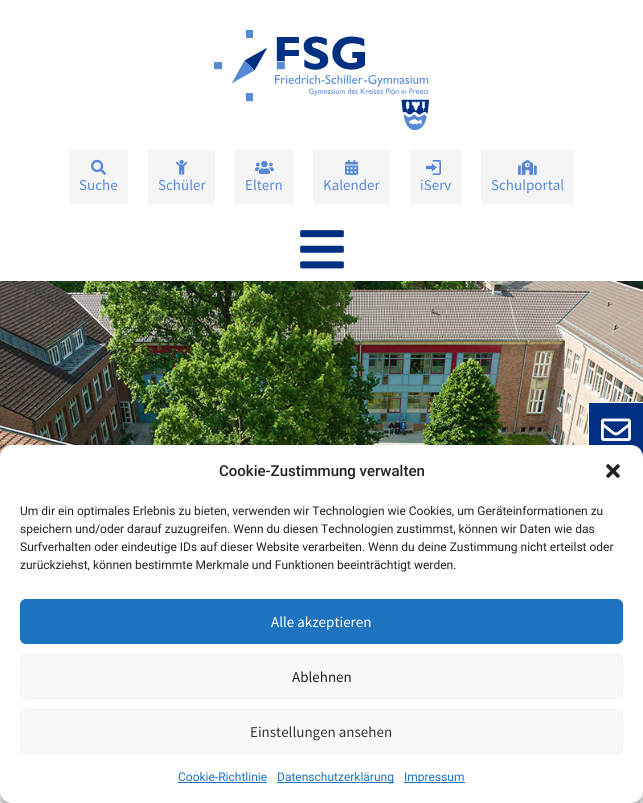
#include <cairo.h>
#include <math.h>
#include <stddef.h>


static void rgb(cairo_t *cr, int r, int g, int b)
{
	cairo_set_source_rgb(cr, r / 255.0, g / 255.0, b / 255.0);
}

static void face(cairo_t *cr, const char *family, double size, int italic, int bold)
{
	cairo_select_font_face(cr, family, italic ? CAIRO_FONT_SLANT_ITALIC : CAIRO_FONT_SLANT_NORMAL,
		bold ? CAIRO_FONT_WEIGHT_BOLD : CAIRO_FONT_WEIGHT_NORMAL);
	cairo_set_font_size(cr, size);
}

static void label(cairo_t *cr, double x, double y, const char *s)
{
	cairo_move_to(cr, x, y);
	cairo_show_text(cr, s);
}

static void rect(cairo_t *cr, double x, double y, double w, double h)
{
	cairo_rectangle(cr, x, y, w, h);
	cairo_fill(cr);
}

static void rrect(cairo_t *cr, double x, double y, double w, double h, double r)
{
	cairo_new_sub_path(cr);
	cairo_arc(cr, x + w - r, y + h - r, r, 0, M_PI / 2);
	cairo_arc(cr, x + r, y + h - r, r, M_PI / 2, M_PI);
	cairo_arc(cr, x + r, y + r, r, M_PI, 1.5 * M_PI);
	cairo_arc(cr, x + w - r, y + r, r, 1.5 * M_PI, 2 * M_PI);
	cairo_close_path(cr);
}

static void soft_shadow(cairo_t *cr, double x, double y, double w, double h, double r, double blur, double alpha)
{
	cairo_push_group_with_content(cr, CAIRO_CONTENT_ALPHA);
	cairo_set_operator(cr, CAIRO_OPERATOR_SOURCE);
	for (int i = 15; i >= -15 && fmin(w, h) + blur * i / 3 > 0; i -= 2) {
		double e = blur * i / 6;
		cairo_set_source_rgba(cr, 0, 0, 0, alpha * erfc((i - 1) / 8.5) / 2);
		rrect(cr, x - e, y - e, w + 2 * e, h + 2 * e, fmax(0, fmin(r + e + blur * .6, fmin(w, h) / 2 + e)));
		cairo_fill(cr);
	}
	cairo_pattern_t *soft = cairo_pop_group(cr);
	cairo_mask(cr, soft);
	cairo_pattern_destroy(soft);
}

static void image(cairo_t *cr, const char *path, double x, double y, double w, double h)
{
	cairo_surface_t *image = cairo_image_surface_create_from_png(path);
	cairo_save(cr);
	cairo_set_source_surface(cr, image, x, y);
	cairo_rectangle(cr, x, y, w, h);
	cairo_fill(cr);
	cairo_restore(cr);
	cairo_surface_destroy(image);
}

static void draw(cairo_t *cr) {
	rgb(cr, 255, 255, 255);
	cairo_paint(cr);
	image(cr, "image0.png", 214, 30, 215, 100);
	rgb(cr, 245, 245, 245);
	rect(cr, 69, 150, 59, 54);
	image(cr, "image1.png", 91, 159, 15, 16);
	face(cr, "Source Sans Pro", 15, 0, 0);
	rgb(cr, 87, 138, 214);
	label(cr, 79, 190, "Suche");
	rgb(cr, 245, 245, 245);
	rect(cr, 148, 150, 67, 54);
	image(cr, "image2.png", 176, 159, 12, 16);
	rgb(cr, 87, 138, 214);
	label(cr, 158, 190, "Schüler");
	rgb(cr, 245, 245, 245);
	rect(cr, 235, 150, 58, 54);
	image(cr, "image3.png", 255, 160, 19, 14);
	rgb(cr, 87, 138, 214);
	label(cr, 245, 190, "Eltern");
	rgb(cr, 245, 245, 245);
	rect(cr, 313, 150, 77, 54);
	image(cr, "image4.png", 345, 159, 14, 16);
	rgb(cr, 87, 138, 214);
	label(cr, 323, 190, "Kalender");
	rgb(cr, 245, 245, 245);
	rect(cr, 410, 150, 51, 54);
	image(cr, "image5.png", 426, 160, 15, 15);
	rgb(cr, 87, 138, 214);
	label(cr, 420, 190, "iServ");
	rgb(cr, 245, 245, 245);
	rect(cr, 481, 150, 93, 54);
	image(cr, "image6.png", 518, 159, 19, 16);
	rgb(cr, 87, 138, 214);
	label(cr, 491, 190, "Schulportal");
	image(cr, "image7.png", 300, 230, 44, 39);
	image(cr, "image8.png", 0, 281, 643, 176);
	rgb(cr, 0, 48, 130);
	rect(cr, 589, 403, 54, 54);
	rgb(cr, 255, 255, 255);
	rect(cr, 588, 402, 55, 1);
	rect(cr, 588, 402, 1, 43);
	image(cr, "image9.png", 601, 418, 30, 23);
	rgb(cr, 0, 0, 0);
	soft_shadow(cr, 0, 451, 643, 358, 12, 3, 0.23);
	soft_shadow(cr, 0, 455, 643, 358, 12, 10, 0.19);
	rgb(cr, 255, 255, 255);
	rrect(cr, 0, 445, 643, 358, 12);
	cairo_fill(cr);
	face(cr, "Roboto Medium", 15, 0, 0);
	rgb(cr, 34, 34, 34);
	label(cr, 219, 476, "Cookie-Zustimmung verwalten");
	image(cr, "image10.png", 606, 464, 14, 14);
	face(cr, "Roboto", 12, 0, 0);
	label(cr, 20, 515, "Um dir ein optimales Erlebnis zu bieten, verwenden wir Technologien wie Cookies, um Geräteinformationen zu");
	label(cr, 20, 533, "speichern und/oder darauf zuzugreifen. Wenn du diesen Technologien zustimmst, können wir Daten wie das");
	label(cr, 20, 551, "Surfverhalten oder eindeutige IDs auf dieser Website verarbeiten. Wenn du deine Zustimmung nicht erteilst oder");
	label(cr, 20, 569, "zurückziehst, können bestimmte Merkmale und Funktionen beeinträchtigt werden.");
	rgb(cr, 30, 115, 190);
	rrect(cr, 20.5, 599.5, 602, 44, 5.5);
	cairo_fill_preserve(cr);
	cairo_set_line_width(cr, 1);
	cairo_stroke(cr);
	face(cr, "Source Sans Pro", 15, 0, 0);
	rgb(cr, 255, 255, 255);
	label(cr, 271, 627, "Alle akzeptieren");
	rgb(cr, 249, 249, 249);
	rrect(cr, 20.5, 654.5, 602, 44, 5.5);
	cairo_fill_preserve(cr);
	rgb(cr, 242, 242, 242);
	cairo_stroke(cr);
	rgb(cr, 34, 34, 34);
	label(cr, 292, 682, "Ablehnen");
	rgb(cr, 249, 249, 249);
	rrect(cr, 20.5, 709.5, 602, 44, 5.5);
	cairo_fill_preserve(cr);
	rgb(cr, 242, 242, 242);
	cairo_stroke(cr);
	rgb(cr, 51, 51, 51);
	label(cr, 250, 737, "Einstellungen ansehen");
	face(cr, "Roboto", 12, 0, 0);
	rgb(cr, 30, 115, 190);
	label(cr, 178, 781, "Cookie-Richtlinie");
	rect(cr, 178, 782, 89, 1);
	rect(cr, 277, 782, 117, 1);
	label(cr, 277, 781, "Datenschutzerklärung");
	rect(cr, 404, 782, 61, 1);
	label(cr, 404, 781, "Impressum");
}

int main(void) {
	cairo_surface_t *surface = cairo_image_surface_create(CAIRO_FORMAT_RGB24, 643, 803);
	cairo_t *cr = cairo_create(surface);
	cairo_font_options_t *options = cairo_font_options_create();
	cairo_font_options_set_hint_metrics(options, CAIRO_HINT_METRICS_OFF);
	cairo_font_options_set_hint_style(options, CAIRO_HINT_STYLE_NONE);
	cairo_set_font_options(cr, options);
	cairo_set_miter_limit(cr, 4);
	draw(cr);
	cairo_surface_write_to_png(surface, "render.png");
	cairo_font_options_destroy(options);
	cairo_destroy(cr);
	cairo_surface_destroy(surface);
	return 0;
}
